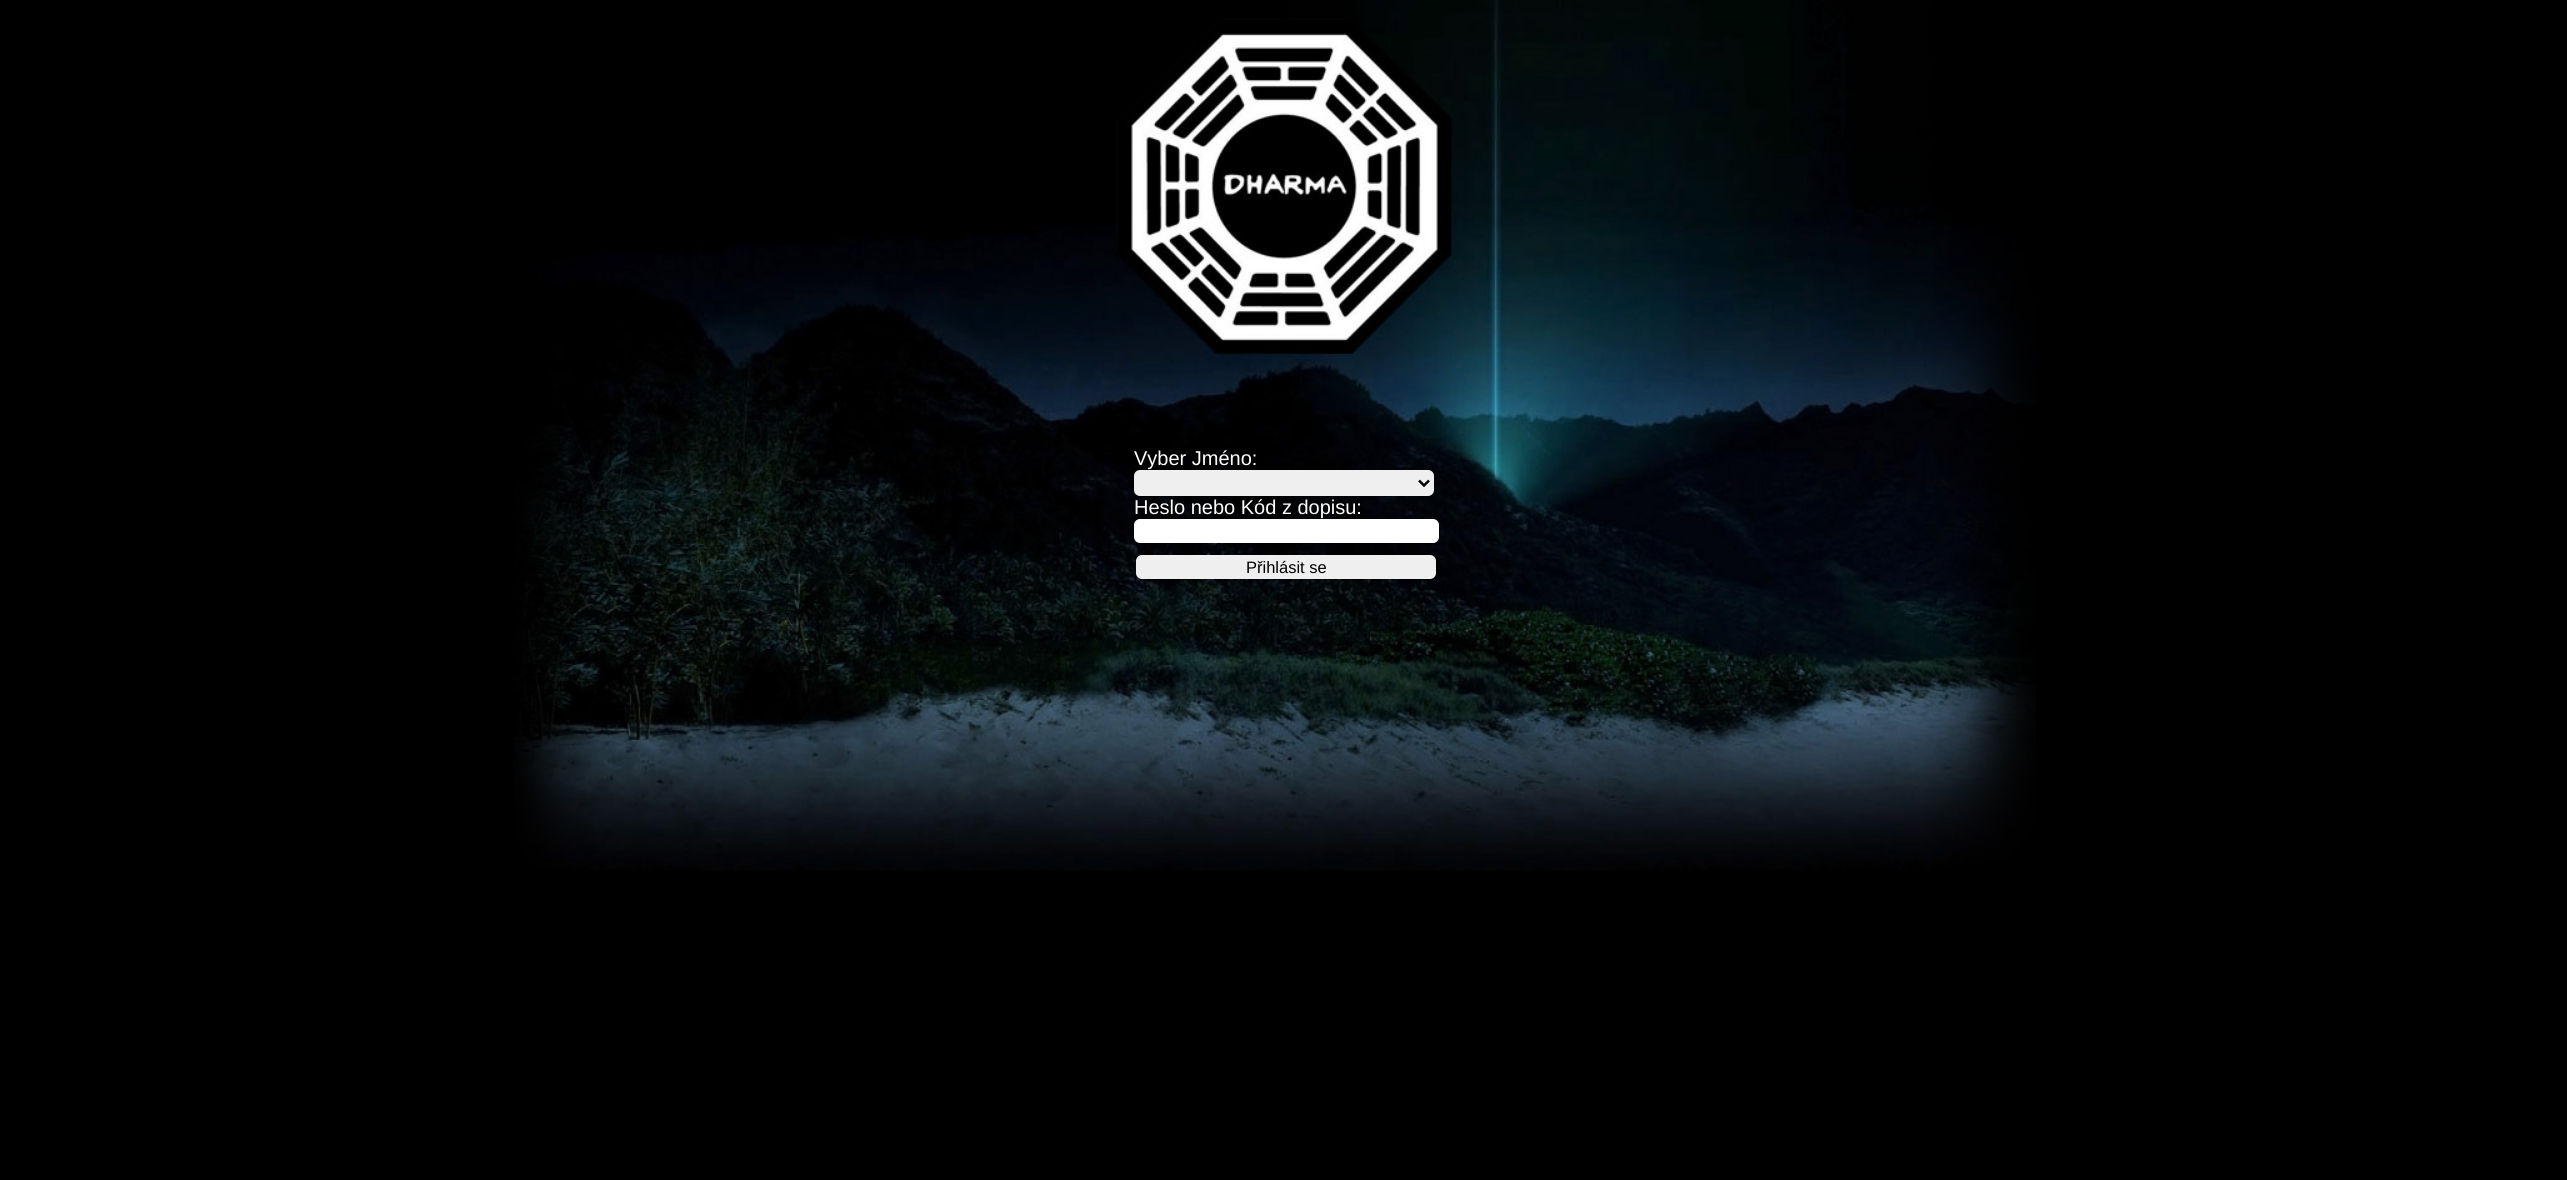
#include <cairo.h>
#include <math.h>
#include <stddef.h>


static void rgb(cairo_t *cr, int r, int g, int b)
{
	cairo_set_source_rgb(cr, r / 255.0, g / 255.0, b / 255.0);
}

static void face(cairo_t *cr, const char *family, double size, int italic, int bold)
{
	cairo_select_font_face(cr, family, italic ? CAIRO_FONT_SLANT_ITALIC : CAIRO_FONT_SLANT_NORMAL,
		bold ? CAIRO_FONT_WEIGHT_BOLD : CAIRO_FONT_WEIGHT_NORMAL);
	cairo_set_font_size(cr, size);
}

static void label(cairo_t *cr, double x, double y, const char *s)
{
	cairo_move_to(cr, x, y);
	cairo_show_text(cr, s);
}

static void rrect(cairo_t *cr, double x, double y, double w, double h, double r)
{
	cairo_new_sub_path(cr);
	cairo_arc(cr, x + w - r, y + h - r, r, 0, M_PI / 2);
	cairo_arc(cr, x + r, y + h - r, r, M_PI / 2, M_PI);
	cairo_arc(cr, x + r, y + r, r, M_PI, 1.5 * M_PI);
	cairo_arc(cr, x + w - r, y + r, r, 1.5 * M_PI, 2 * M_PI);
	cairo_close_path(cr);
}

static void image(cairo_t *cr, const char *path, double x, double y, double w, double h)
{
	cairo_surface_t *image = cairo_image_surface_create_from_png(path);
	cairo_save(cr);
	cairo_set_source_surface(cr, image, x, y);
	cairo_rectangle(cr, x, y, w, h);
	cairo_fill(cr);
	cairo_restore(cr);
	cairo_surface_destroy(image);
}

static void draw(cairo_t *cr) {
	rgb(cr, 0, 0, 0);
	cairo_paint(cr);
	image(cr, "image0.png", 514, 0, 1522, 871);
	face(cr, "Liberation Sans", 20, 0, 0);
	rgb(cr, 255, 255, 255);
	label(cr, 1134, 465, "Vyber Jméno:");
	rgb(cr, 239, 239, 239);
	rrect(cr, 1134, 470, 300, 26, 6);
	cairo_fill(cr);
	cairo_new_path(cr);
	cairo_move_to(cr, 1419, 480.5);
	cairo_line_to(cr, 1424, 485.5);
	cairo_line_to(cr, 1429, 480.5);
	rgb(cr, 0, 0, 0);
	cairo_set_line_width(cr, 2.5);
	cairo_stroke(cr);
	rgb(cr, 255, 255, 255);
	label(cr, 1134, 514, "Heslo nebo Kód z dopisu:");
	rrect(cr, 1134, 519, 305, 24, 6);
	cairo_fill(cr);
	rgb(cr, 239, 239, 239);
	rrect(cr, 1136, 555, 300, 24, 6);
	cairo_fill(cr);
	face(cr, "Liberation Sans", 16.5, 0, 0);
	rgb(cr, 0, 0, 0);
	label(cr, 1246, 573, "Přihlásit se");
}

int main(void) {
	cairo_surface_t *surface = cairo_image_surface_create(CAIRO_FORMAT_RGB24, 2567, 1180);
	cairo_t *cr = cairo_create(surface);
	cairo_font_options_t *options = cairo_font_options_create();
	cairo_font_options_set_hint_metrics(options, CAIRO_HINT_METRICS_OFF);
	cairo_font_options_set_hint_style(options, CAIRO_HINT_STYLE_NONE);
	cairo_set_font_options(cr, options);
	cairo_set_miter_limit(cr, 4);
	draw(cr);
	cairo_surface_write_to_png(surface, "render.png");
	cairo_font_options_destroy(options);
	cairo_destroy(cr);
	cairo_surface_destroy(surface);
	return 0;
}
